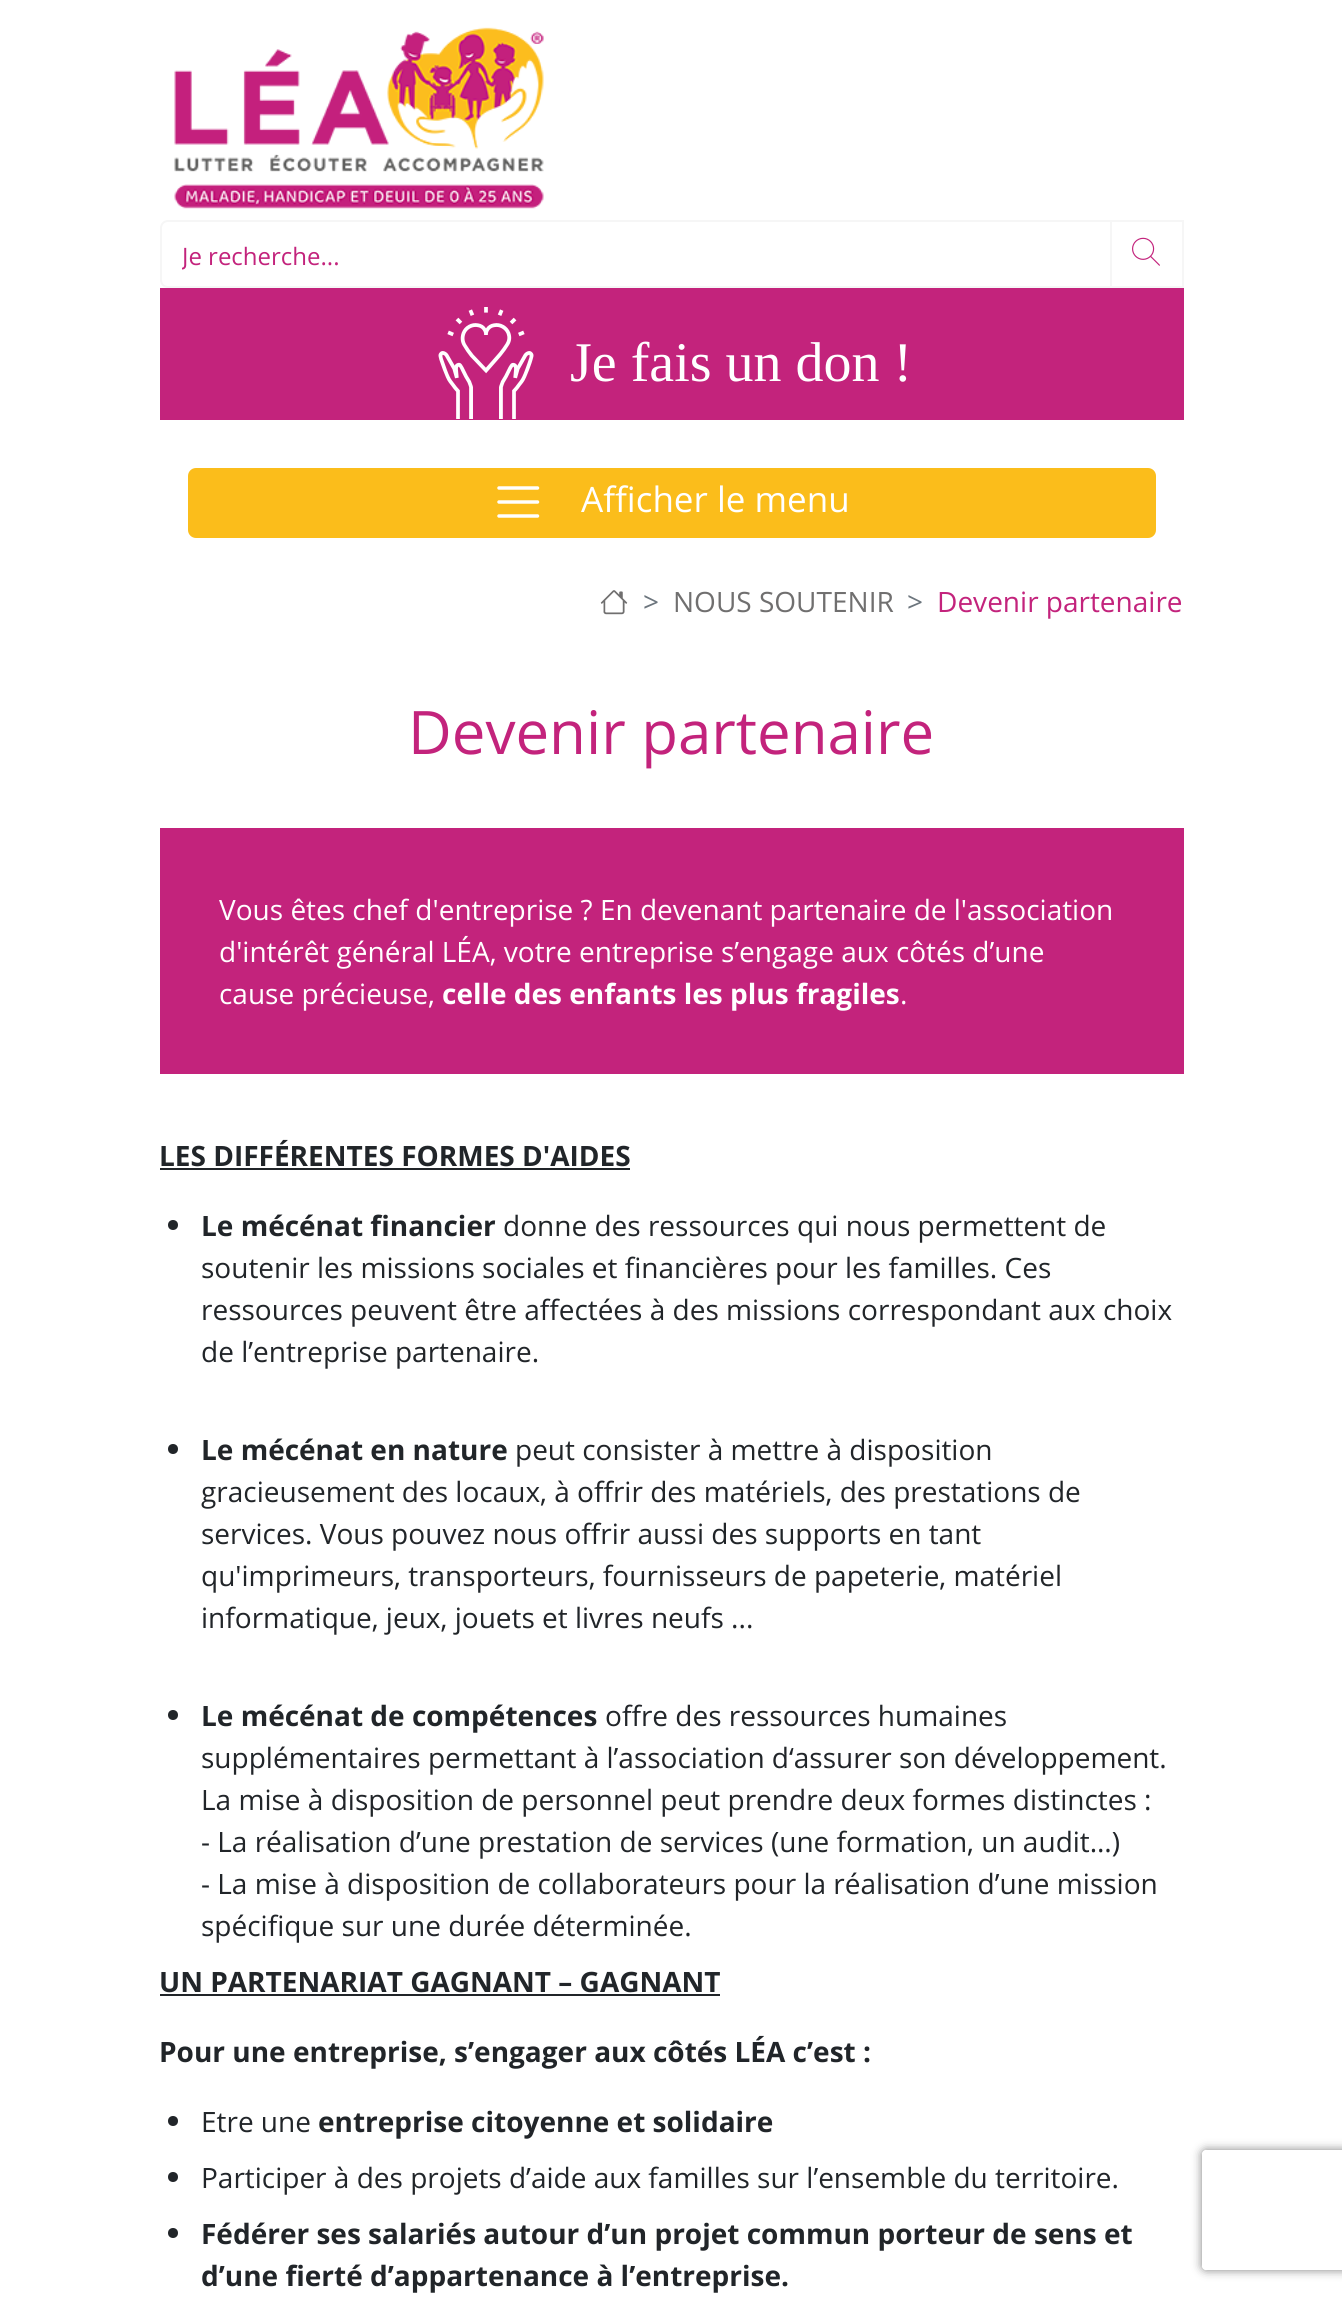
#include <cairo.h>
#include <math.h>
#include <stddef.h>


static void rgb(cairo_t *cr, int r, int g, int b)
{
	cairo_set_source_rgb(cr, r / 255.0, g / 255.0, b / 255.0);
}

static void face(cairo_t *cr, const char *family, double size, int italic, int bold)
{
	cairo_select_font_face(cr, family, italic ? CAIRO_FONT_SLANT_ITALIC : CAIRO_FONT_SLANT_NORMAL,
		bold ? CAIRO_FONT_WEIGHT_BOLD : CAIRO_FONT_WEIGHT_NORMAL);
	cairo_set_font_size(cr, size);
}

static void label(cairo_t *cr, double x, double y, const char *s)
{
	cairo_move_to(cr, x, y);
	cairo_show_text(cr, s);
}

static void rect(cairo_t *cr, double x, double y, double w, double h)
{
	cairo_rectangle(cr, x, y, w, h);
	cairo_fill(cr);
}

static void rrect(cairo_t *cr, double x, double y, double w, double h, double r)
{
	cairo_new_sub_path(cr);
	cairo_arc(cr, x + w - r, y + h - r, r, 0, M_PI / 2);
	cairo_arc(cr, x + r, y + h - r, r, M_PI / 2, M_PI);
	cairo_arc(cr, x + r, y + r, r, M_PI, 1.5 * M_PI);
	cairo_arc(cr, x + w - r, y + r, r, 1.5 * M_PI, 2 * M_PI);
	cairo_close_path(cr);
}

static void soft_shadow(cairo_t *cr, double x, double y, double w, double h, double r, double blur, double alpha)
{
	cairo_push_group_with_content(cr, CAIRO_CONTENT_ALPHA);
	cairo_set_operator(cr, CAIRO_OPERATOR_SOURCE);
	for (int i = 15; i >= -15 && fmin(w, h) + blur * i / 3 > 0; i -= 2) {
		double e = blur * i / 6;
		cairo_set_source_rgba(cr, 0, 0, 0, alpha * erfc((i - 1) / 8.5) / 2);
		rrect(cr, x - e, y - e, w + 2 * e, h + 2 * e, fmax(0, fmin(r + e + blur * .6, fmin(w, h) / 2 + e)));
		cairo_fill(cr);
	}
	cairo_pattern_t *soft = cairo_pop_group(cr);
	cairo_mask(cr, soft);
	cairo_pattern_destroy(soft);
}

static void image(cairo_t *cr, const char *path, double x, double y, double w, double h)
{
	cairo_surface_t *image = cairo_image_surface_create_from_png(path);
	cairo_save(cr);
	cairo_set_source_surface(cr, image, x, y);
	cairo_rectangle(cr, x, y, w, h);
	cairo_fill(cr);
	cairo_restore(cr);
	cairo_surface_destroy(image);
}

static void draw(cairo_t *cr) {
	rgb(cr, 255, 255, 255);
	cairo_paint(cr);
	image(cr, "image0.png", 174, 27, 370, 182);
	cairo_new_path(cr);
	cairo_move_to(cr, 168, 221);
	cairo_line_to(cr, 1111, 221);
	cairo_line_to(cr, 1111, 287);
	cairo_line_to(cr, 168, 287);
	cairo_curve_to(cr, 164, 287, 161, 284, 161, 280);
	cairo_line_to(cr, 161, 228);
	cairo_curve_to(cr, 161, 224, 164, 221, 168, 221);
	cairo_close_path(cr);
	rgb(cr, 246, 246, 246);
	cairo_stroke(cr);
	cairo_save(cr);
	cairo_rectangle(cr, 182, 238, 906, 32);
	cairo_clip(cr);
	face(cr, "Open Sans", 24, 0, 0);
	rgb(cr, 195, 35, 124);
	label(cr, 182, 265, "Je recherche...");
	cairo_restore(cr);
	cairo_rectangle(cr, 1111, 221, 72, 66);
	cairo_stroke(cr);
	image(cr, "image1.png", 1132, 237, 28, 29);
	rgb(cr, 195, 35, 124);
	rect(cr, 160, 288, 1024, 132);
	image(cr, "image2.png", 438, 307, 96, 112);
	face(cr, "Liberation Serif", 56, 0, 0);
	rgb(cr, 255, 255, 255);
	label(cr, 570, 381, "Je fais un don !");
	rgb(cr, 251, 189, 27);
	rrect(cr, 188, 468, 968, 70, 8);
	cairo_fill(cr);
	cairo_new_path(cr);
	cairo_move_to(cr, 499, 488);
	cairo_line_to(cr, 537.5, 488);
	cairo_move_to(cr, 499, 502);
	cairo_line_to(cr, 537.5, 502);
	cairo_move_to(cr, 499, 516);
	cairo_line_to(cr, 537.5, 516);
	rgb(cr, 255, 255, 255);
	cairo_set_line_width(cr, 3.5);
	cairo_set_line_cap(cr, CAIRO_LINE_CAP_ROUND);
	cairo_stroke(cr);
	face(cr, "Open Sans", 35, 0, 0);
	label(cr, 581, 512, "Afficher le menu");
	image(cr, "image3.png", 600, 590, 28, 25);
	face(cr, "Open Sans", 28, 0, 0);
	rgb(cr, 108, 117, 125);
	label(cr, 643, 612, ">");
	rgb(cr, 112, 111, 111);
	label(cr, 673, 612, "NOUS SOUTENIR");
	rgb(cr, 108, 117, 125);
	label(cr, 907, 612, ">");
	rgb(cr, 195, 35, 124);
	label(cr, 937, 612, "Devenir partenaire");
	face(cr, "Open Sans", 60, 0, 0);
	label(cr, 408, 754, "Devenir partenaire");
	rect(cr, 160, 828, 1024, 246);
	face(cr, "Open Sans", 28, 0, 0);
	rgb(cr, 255, 255, 255);
	label(cr, 219, 920, "Vous êtes chef d'entreprise ? En devenant partenaire de l'association");
	label(cr, 219, 962, "d'intérêt général LÉA, votre entreprise s’engage aux côtés d’une");
	label(cr, 219, 1004, "cause précieuse,");
	face(cr, "Open Sans", 28, 0, 1);
	label(cr, 442, 1004, "celle des enfants les plus fragiles");
	face(cr, "Open Sans", 28, 0, 0);
	label(cr, 900, 1004, ".");
	face(cr, "Open Sans", 28, 0, 1);
	rgb(cr, 33, 37, 41);
	label(cr, 159, 1166, "LES DIFFÉRENTES FORMES D'AIDES");
	rect(cr, 160, 1168, 470, 2);
	cairo_new_path(cr);
	cairo_arc(cr, 173, 1225, 5, 0, 2 * M_PI);
	cairo_fill(cr);
	label(cr, 201, 1236, "Le mécénat financier");
	face(cr, "Open Sans", 28, 0, 0);
	label(cr, 503, 1236, "donne des ressources qui nous permettent de");
	label(cr, 201, 1278, "soutenir les missions sociales et financières pour les familles. Ces");
	label(cr, 201, 1320, "ressources peuvent être affectées à des missions correspondant aux choix");
	label(cr, 201, 1362, "de l’entreprise partenaire.");
	cairo_new_path(cr);
	cairo_arc(cr, 173, 1449, 5, 0, 2 * M_PI);
	cairo_fill(cr);
	face(cr, "Open Sans", 28, 0, 1);
	label(cr, 201, 1460, "Le mécénat en nature");
	face(cr, "Open Sans", 28, 0, 0);
	label(cr, 515, 1460, "peut consister à mettre à disposition");
	label(cr, 201, 1502, "gracieusement des locaux, à offrir des matériels, des prestations de");
	label(cr, 201, 1544, "services. Vous pouvez nous offrir aussi des supports en tant");
	label(cr, 201, 1586, "qu'imprimeurs, transporteurs, fournisseurs de papeterie, matériel");
	label(cr, 201, 1628, "informatique, jeux, jouets et livres neufs ...");
	cairo_new_path(cr);
	cairo_arc(cr, 173, 1715, 5, 0, 2 * M_PI);
	cairo_fill(cr);
	face(cr, "Open Sans", 28, 0, 1);
	label(cr, 201, 1726, "Le mécénat de compétences");
	face(cr, "Open Sans", 28, 0, 0);
	label(cr, 605, 1726, "offre des ressources humaines");
	label(cr, 201, 1768, "supplémentaires permettant à l’association d‘assurer son développement.");
	label(cr, 201, 1810, "La mise à disposition de personnel peut prendre deux formes distinctes :");
	label(cr, 201, 1852, "- La réalisation d’une prestation de services (une formation, un audit…)");
	label(cr, 201, 1894, "- La mise à disposition de collaborateurs pour la réalisation d’une mission");
	label(cr, 201, 1936, "spécifique sur une durée déterminée.");
	face(cr, "Open Sans", 28, 0, 1);
	label(cr, 159, 1992, "UN PARTENARIAT GAGNANT – GAGNANT");
	rect(cr, 160, 1994, 560, 2);
	label(cr, 159, 2062, "Pour une entreprise, s’engager aux côtés LÉA c’est :");
	cairo_new_path(cr);
	cairo_arc(cr, 173, 2121, 5, 0, 2 * M_PI);
	cairo_fill(cr);
	face(cr, "Open Sans", 28, 0, 0);
	label(cr, 201, 2132, "Etre une");
	face(cr, "Open Sans", 28, 0, 1);
	label(cr, 318, 2132, "entreprise citoyenne et solidaire");
	cairo_new_path(cr);
	cairo_arc(cr, 173, 2177, 5, 0, 2 * M_PI);
	cairo_fill(cr);
	face(cr, "Open Sans", 28, 0, 0);
	label(cr, 201, 2188, "Participer à des projets d’aide aux familles sur l’ensemble du territoire.");
	cairo_new_path(cr);
	cairo_arc(cr, 173, 2233, 5, 0, 2 * M_PI);
	cairo_fill(cr);
	face(cr, "Open Sans", 28, 0, 1);
	label(cr, 201, 2244, "Fédérer ses salariés autour d’un projet commun porteur de sens et");
	label(cr, 201, 2286, "d’une fierté d’appartenance à l’entreprise.");
	cairo_save(cr);
	cairo_set_fill_rule(cr, CAIRO_FILL_RULE_EVEN_ODD);
	cairo_new_path(cr);
	cairo_move_to(cr, 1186, 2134);
	cairo_line_to(cr, 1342, 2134);
	cairo_line_to(cr, 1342, 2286);
	cairo_line_to(cr, 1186, 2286);
	cairo_close_path(cr);
	cairo_move_to(cr, 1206, 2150);
	cairo_line_to(cr, 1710, 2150);
	cairo_curve_to(cr, 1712, 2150, 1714, 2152, 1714, 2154);
	cairo_line_to(cr, 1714, 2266);
	cairo_curve_to(cr, 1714, 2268, 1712, 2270, 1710, 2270);
	cairo_line_to(cr, 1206, 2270);
	cairo_curve_to(cr, 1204, 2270, 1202, 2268, 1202, 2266);
	cairo_line_to(cr, 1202, 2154);
	cairo_curve_to(cr, 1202, 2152, 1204, 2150, 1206, 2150);
	cairo_close_path(cr);
	cairo_clip(cr);
	rgb(cr, 128, 128, 128);
	soft_shadow(cr, 1202, 2150, 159, 120, 4, 5, 1);
	cairo_restore(cr);
}

int main(void) {
	cairo_surface_t *surface = cairo_image_surface_create(CAIRO_FORMAT_RGB24, 1342, 2298);
	cairo_t *cr = cairo_create(surface);
	cairo_font_options_t *options = cairo_font_options_create();
	cairo_font_options_set_hint_metrics(options, CAIRO_HINT_METRICS_OFF);
	cairo_font_options_set_hint_style(options, CAIRO_HINT_STYLE_NONE);
	cairo_set_font_options(cr, options);
	cairo_set_miter_limit(cr, 4);
	draw(cr);
	cairo_surface_write_to_png(surface, "render.png");
	cairo_font_options_destroy(options);
	cairo_destroy(cr);
	cairo_surface_destroy(surface);
	return 0;
}
